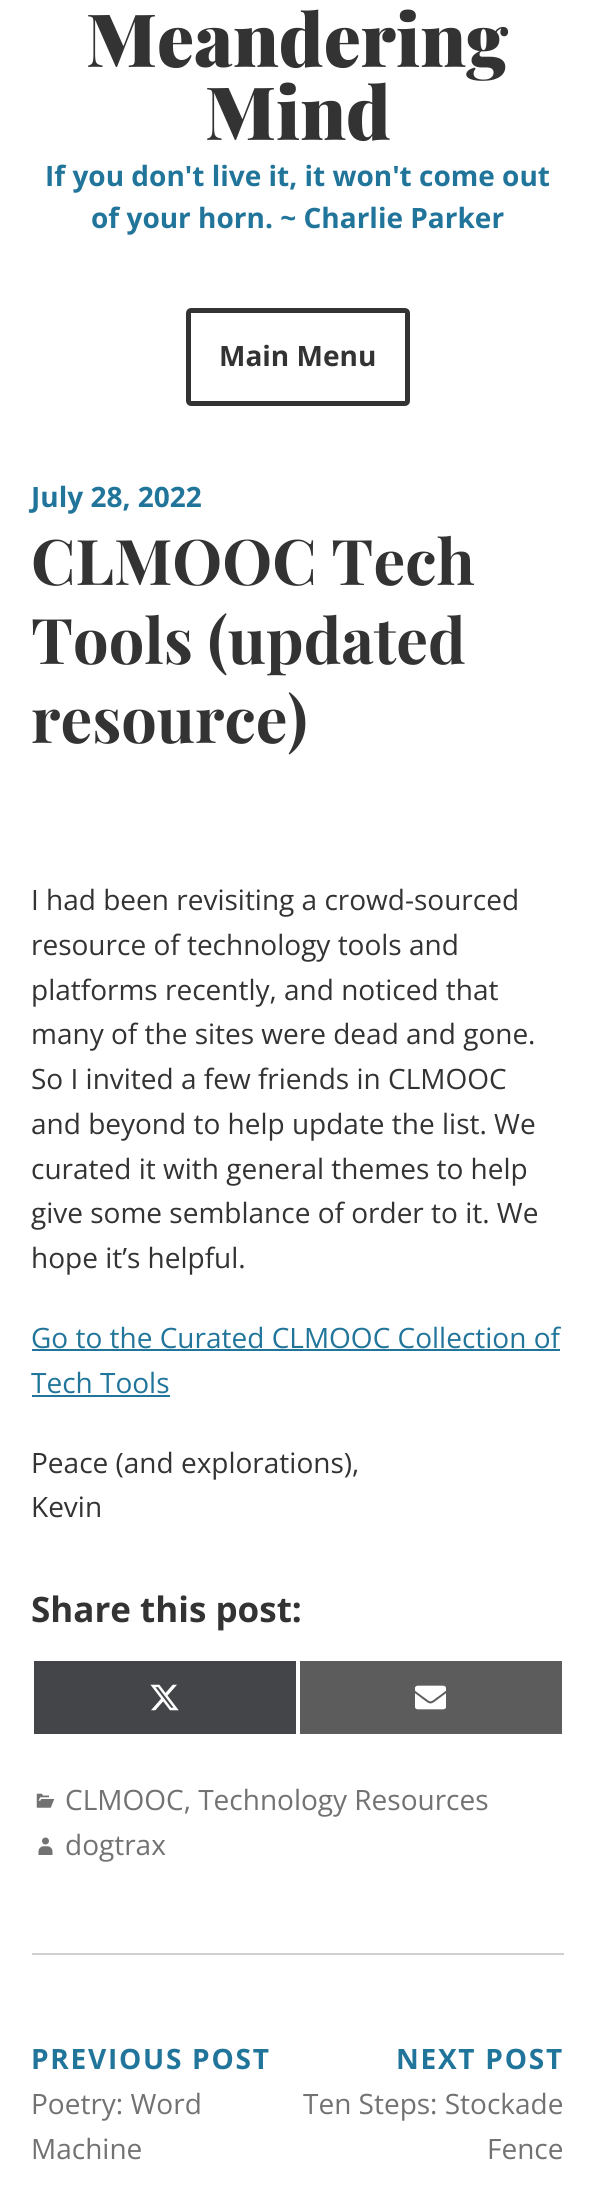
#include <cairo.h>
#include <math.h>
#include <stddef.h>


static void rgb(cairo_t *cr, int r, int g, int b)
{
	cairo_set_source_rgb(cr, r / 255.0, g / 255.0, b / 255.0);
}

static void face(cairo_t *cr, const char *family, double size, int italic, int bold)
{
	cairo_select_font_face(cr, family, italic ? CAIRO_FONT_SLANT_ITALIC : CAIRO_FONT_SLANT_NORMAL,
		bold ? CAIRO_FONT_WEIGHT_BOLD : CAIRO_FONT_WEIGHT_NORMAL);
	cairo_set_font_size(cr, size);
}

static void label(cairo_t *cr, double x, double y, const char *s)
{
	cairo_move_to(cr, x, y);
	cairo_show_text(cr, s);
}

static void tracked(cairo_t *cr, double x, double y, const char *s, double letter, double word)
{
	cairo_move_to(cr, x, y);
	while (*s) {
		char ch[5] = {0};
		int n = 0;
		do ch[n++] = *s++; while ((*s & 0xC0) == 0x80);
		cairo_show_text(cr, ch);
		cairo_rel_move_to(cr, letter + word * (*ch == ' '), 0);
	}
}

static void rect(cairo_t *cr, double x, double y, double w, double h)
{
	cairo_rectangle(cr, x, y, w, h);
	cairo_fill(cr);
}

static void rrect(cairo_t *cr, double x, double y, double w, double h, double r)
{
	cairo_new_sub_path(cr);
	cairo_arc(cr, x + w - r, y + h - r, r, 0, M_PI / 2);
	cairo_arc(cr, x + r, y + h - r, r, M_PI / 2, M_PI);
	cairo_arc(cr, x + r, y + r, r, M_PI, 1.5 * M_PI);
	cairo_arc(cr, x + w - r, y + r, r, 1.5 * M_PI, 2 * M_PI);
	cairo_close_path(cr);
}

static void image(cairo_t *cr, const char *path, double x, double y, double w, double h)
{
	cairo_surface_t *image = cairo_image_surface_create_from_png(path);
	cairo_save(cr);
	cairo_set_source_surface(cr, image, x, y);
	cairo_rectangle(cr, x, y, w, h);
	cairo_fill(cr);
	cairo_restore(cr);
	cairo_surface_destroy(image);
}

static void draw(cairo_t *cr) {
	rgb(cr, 255, 255, 255);
	cairo_paint(cr);
	face(cr, "Playfair Display Black", 73.5, 0, 0);
	rgb(cr, 51, 51, 51);
	label(cr, 86, 67, "Meandering");
	label(cr, 205, 140, "Mind");
	face(cr, "Open Sans", 28, 0, 1);
	rgb(cr, 33, 117, 155);
	label(cr, 45, 186, "If you don't live it, it won't come out");
	label(cr, 91, 228, "of your horn. ~ Charlie Parker");
	rrect(cr, 188.5, 310.5, 219, 93, 2.5);
	rgb(cr, 51, 51, 51);
	cairo_set_line_width(cr, 5);
	cairo_stroke(cr);
	label(cr, 219, 366, "Main Menu");
	rgb(cr, 33, 117, 155);
	label(cr, 31, 507, "July 28, 2022");
	face(cr, "Playfair Display", 63, 0, 1);
	rgb(cr, 51, 51, 51);
	label(cr, 31, 585, "CLMOOC Tech");
	label(cr, 31, 664, "Tools (updated");
	label(cr, 31, 743, "resource)");
	face(cr, "Open Sans", 28, 0, 0);
	label(cr, 31, 910, "I had been revisiting a crowd-sourced");
	label(cr, 31, 955, "resource of technology tools and");
	label(cr, 31, 1000, "platforms recently, and noticed that");
	label(cr, 31, 1044, "many of the sites were dead and gone.");
	label(cr, 31, 1089, "So I invited a few friends in CLMOOC");
	label(cr, 31, 1134, "and beyond to help update the list. We");
	label(cr, 31, 1179, "curated it with general themes to help");
	label(cr, 31, 1223, "give some semblance of order to it. We");
	label(cr, 31, 1268, "hope it’s helpful.");
	rgb(cr, 33, 117, 155);
	label(cr, 31, 1348, "Go to the Curated CLMOOC Collection of");
	rect(cr, 32, 1349, 528, 2);
	label(cr, 31, 1393, "Tech Tools");
	rect(cr, 32, 1395, 138, 2);
	rgb(cr, 51, 51, 51);
	label(cr, 31, 1473, "Peace (and explorations),");
	label(cr, 31, 1517, "Kevin");
	face(cr, "Open Sans", 35, 0, 1);
	label(cr, 31, 1622, "Share this post:");
	rgb(cr, 67, 69, 72);
	rect(cr, 34, 1661, 262, 73);
	image(cr, "image0.png", 150, 1684, 29, 27);
	rgb(cr, 92, 92, 92);
	rect(cr, 300, 1661, 262, 73);
	image(cr, "image1.png", 415, 1685, 31, 25);
	image(cr, "image2.png", 36, 1793, 19, 15);
	face(cr, "Open Sans", 28, 0, 0);
	rgb(cr, 114, 114, 114);
	label(cr, 65, 1810, "CLMOOC, Technology Resources");
	image(cr, "image3.png", 38, 1837, 15, 18);
	label(cr, 65, 1855, "dogtrax");
	rgb(cr, 208, 208, 208);
	rect(cr, 32, 1953, 532, 2);
	face(cr, "Open Sans", 28, 0, 1);
	rgb(cr, 33, 117, 155);
	tracked(cr, 31, 2069, "PREVIOUS POST", 1.75, 0);
	face(cr, "Open Sans", 28, 0, 0);
	rgb(cr, 114, 114, 114);
	label(cr, 31, 2114, "Poetry: Word");
	label(cr, 31, 2159, "Machine");
	face(cr, "Open Sans", 28, 0, 1);
	rgb(cr, 33, 117, 155);
	tracked(cr, 396, 2069, "NEXT POST", 1.75, 0);
	face(cr, "Open Sans", 28, 0, 0);
	rgb(cr, 114, 114, 114);
	label(cr, 303, 2114, "Ten Steps: Stockade");
	label(cr, 487, 2159, "Fence");
}

int main(void) {
	cairo_surface_t *surface = cairo_image_surface_create(CAIRO_FORMAT_RGB24, 594, 2195);
	cairo_t *cr = cairo_create(surface);
	cairo_font_options_t *options = cairo_font_options_create();
	cairo_font_options_set_hint_metrics(options, CAIRO_HINT_METRICS_OFF);
	cairo_font_options_set_hint_style(options, CAIRO_HINT_STYLE_NONE);
	cairo_set_font_options(cr, options);
	cairo_set_miter_limit(cr, 4);
	draw(cr);
	cairo_surface_write_to_png(surface, "render.png");
	cairo_font_options_destroy(options);
	cairo_destroy(cr);
	cairo_surface_destroy(surface);
	return 0;
}
